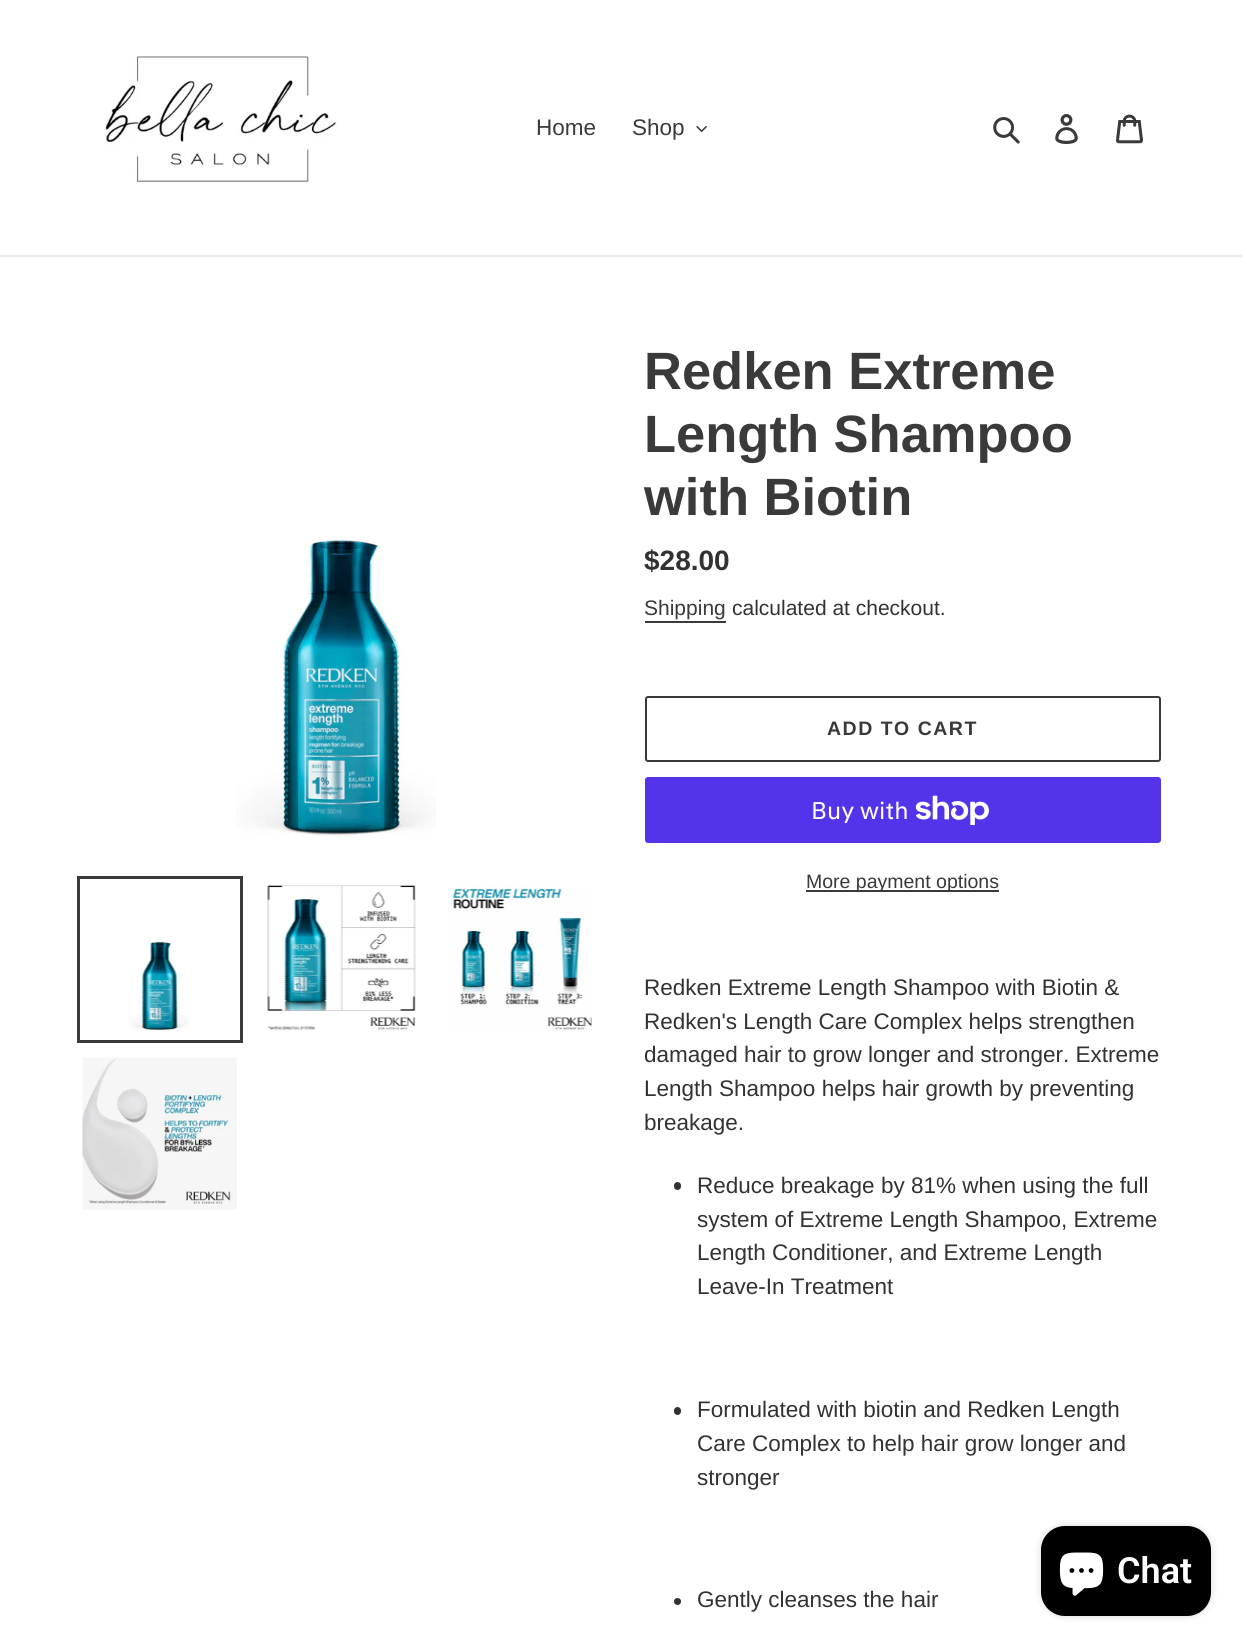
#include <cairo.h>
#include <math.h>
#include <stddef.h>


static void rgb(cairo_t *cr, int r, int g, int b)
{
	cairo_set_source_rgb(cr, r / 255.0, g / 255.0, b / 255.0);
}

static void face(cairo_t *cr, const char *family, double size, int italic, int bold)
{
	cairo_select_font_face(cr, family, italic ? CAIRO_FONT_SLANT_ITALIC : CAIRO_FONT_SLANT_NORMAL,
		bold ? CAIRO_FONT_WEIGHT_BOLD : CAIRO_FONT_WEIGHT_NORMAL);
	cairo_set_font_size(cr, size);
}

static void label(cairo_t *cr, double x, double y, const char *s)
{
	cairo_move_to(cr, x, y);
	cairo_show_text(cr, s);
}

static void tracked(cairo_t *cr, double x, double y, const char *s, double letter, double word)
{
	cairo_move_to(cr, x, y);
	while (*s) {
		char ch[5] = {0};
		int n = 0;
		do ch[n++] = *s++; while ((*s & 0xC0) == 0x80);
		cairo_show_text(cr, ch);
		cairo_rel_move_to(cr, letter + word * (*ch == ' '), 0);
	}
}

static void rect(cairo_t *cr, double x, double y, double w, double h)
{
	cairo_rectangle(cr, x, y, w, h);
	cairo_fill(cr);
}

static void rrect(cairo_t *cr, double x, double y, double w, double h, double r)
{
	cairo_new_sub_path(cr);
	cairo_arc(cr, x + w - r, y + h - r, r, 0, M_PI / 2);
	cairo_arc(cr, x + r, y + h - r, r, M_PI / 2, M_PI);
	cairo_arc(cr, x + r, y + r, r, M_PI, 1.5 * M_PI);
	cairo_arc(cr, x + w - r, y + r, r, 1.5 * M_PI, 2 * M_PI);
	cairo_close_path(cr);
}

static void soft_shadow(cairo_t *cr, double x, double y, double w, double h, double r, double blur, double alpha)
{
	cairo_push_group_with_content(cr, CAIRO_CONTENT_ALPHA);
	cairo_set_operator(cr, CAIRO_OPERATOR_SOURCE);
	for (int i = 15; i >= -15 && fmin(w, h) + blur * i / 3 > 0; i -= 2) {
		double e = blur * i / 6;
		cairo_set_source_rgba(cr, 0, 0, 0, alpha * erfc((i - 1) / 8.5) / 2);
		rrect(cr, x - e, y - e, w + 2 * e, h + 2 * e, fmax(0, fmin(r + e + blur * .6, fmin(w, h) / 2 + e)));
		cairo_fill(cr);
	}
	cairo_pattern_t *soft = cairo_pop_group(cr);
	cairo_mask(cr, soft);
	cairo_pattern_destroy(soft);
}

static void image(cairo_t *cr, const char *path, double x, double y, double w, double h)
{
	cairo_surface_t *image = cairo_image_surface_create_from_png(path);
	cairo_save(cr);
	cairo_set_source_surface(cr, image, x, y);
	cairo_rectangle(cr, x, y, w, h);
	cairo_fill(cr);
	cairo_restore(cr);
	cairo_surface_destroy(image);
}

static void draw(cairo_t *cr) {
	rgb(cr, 255, 255, 255);
	cairo_paint(cr);
	rgb(cr, 235, 235, 235);
	rect(cr, 0, 255, 1243, 2);
	image(cr, "image0.png", 105, 56, 232, 128);
	face(cr, "Liberation Sans", 22.5, 0, 0);
	rgb(cr, 58, 58, 58);
	label(cr, 536, 135, "Home");
	label(cr, 632, 135, "Shop");
	image(cr, "image1.png", 696, 126, 11, 6);
	image(cr, "image2.png", 993, 117, 27, 27);
	image(cr, "image3.png", 1055, 114, 23, 30);
	image(cr, "image4.png", 1116, 114, 27, 30);
	image(cr, "image5.png", 236, 538, 200, 299);
	cairo_rectangle(cr, 78.5, 877.5, 163, 164);
	cairo_set_line_width(cr, 3);
	cairo_stroke(cr);
	image(cr, "image6.png", 129, 939, 60, 92);
	image(cr, "image7.png", 267, 885, 149, 146);
	image(cr, "image8.png", 451, 887, 141, 144);
	image(cr, "image9.png", 82, 1057, 155, 153);
	face(cr, "Liberation Sans", 52.5, 0, 1);
	label(cr, 644, 389, "Redken Extreme");
	label(cr, 644, 452, "Length Shampoo");
	label(cr, 644, 515, "with Biotin");
	face(cr, "Liberation Sans", 28, 0, 1);
	rgb(cr, 51, 50, 50);
	label(cr, 644, 570, "$28.00");
	face(cr, "Liberation Sans", 21, 0, 0);
	rgb(cr, 58, 58, 58);
	label(cr, 644, 615, "Shipping");
	rect(cr, 645, 621, 81, 2);
	rgb(cr, 51, 50, 50);
	label(cr, 732, 615, "calculated at checkout.");
	rrect(cr, 646, 697, 514, 64, 2);
	rgb(cr, 58, 58, 58);
	cairo_set_line_width(cr, 2);
	cairo_stroke(cr);
	face(cr, "Liberation Sans", 19.5, 0, 1);
	tracked(cr, 827, 735, "ADD TO CART", 1.5, 0);
	rgb(cr, 84, 51, 235);
	rrect(cr, 645, 777, 516, 66, 3);
	cairo_fill(cr);
	face(cr, "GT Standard", 24, 0, 0);
	rgb(cr, 255, 255, 255);
	label(cr, 811, 819, "Buy with");
	image(cr, "image10.png", 915, 795, 74, 30);
	rgb(cr, 58, 58, 58);
	rect(cr, 806, 890, 193, 2);
	face(cr, "Liberation Sans", 19.5, 0, 0);
	label(cr, 806, 888, "More payment options");
	face(cr, "Liberation Sans", 22.5, 0, 0);
	rgb(cr, 51, 50, 50);
	label(cr, 644, 995, "Redken Extreme Length Shampoo with Biotin &");
	label(cr, 644, 1029, "Redken's Length Care Complex helps strengthen");
	label(cr, 644, 1062, "damaged hair to grow longer and stronger. Extreme");
	label(cr, 644, 1096, "Length Shampoo helps hair growth by preventing");
	label(cr, 644, 1130, "breakage.");
	rrect(cr, 674, 1182, 7, 8, 3.5);
	cairo_fill(cr);
	label(cr, 697, 1193, "Reduce breakage by 81% when using the full");
	label(cr, 697, 1227, "system of Extreme Length Shampoo, Extreme");
	label(cr, 697, 1260, "Length Conditioner, and Extreme Length");
	label(cr, 697, 1294, "Leave-In Treatment");
	rrect(cr, 674, 1407, 7, 8, 3.5);
	cairo_fill(cr);
	label(cr, 697, 1417, "Formulated with biotin and Redken Length");
	label(cr, 697, 1451, "Care Complex to help hair grow longer and");
	label(cr, 697, 1485, "stronger");
	cairo_new_path(cr);
	cairo_arc(cr, 677.5, 1601.5, 3.5, 0, 2 * M_PI);
	cairo_fill(cr);
	label(cr, 697, 1607, "Gently cleanses the hair");
	rgb(cr, 0, 0, 0);
	soft_shadow(cr, 1041, 1526, 170, 90, 24, 4, 0.15);
	rgb(cr, 0, 0, 0);
	rrect(cr, 1041, 1526, 170, 90, 24);
	cairo_fill(cr);
	image(cr, "image11.png", 1059, 1552, 45, 44);
	face(cr, "Roboto SemiBold", 36, 0, 0);
	rgb(cr, 255, 255, 255);
	label(cr, 1117, 1583, "Chat");
}

int main(void) {
	cairo_surface_t *surface = cairo_image_surface_create(CAIRO_FORMAT_RGB24, 1243, 1647);
	cairo_t *cr = cairo_create(surface);
	cairo_font_options_t *options = cairo_font_options_create();
	cairo_font_options_set_hint_metrics(options, CAIRO_HINT_METRICS_OFF);
	cairo_font_options_set_hint_style(options, CAIRO_HINT_STYLE_NONE);
	cairo_set_font_options(cr, options);
	cairo_set_miter_limit(cr, 4);
	draw(cr);
	cairo_surface_write_to_png(surface, "render.png");
	cairo_font_options_destroy(options);
	cairo_destroy(cr);
	cairo_surface_destroy(surface);
	return 0;
}
